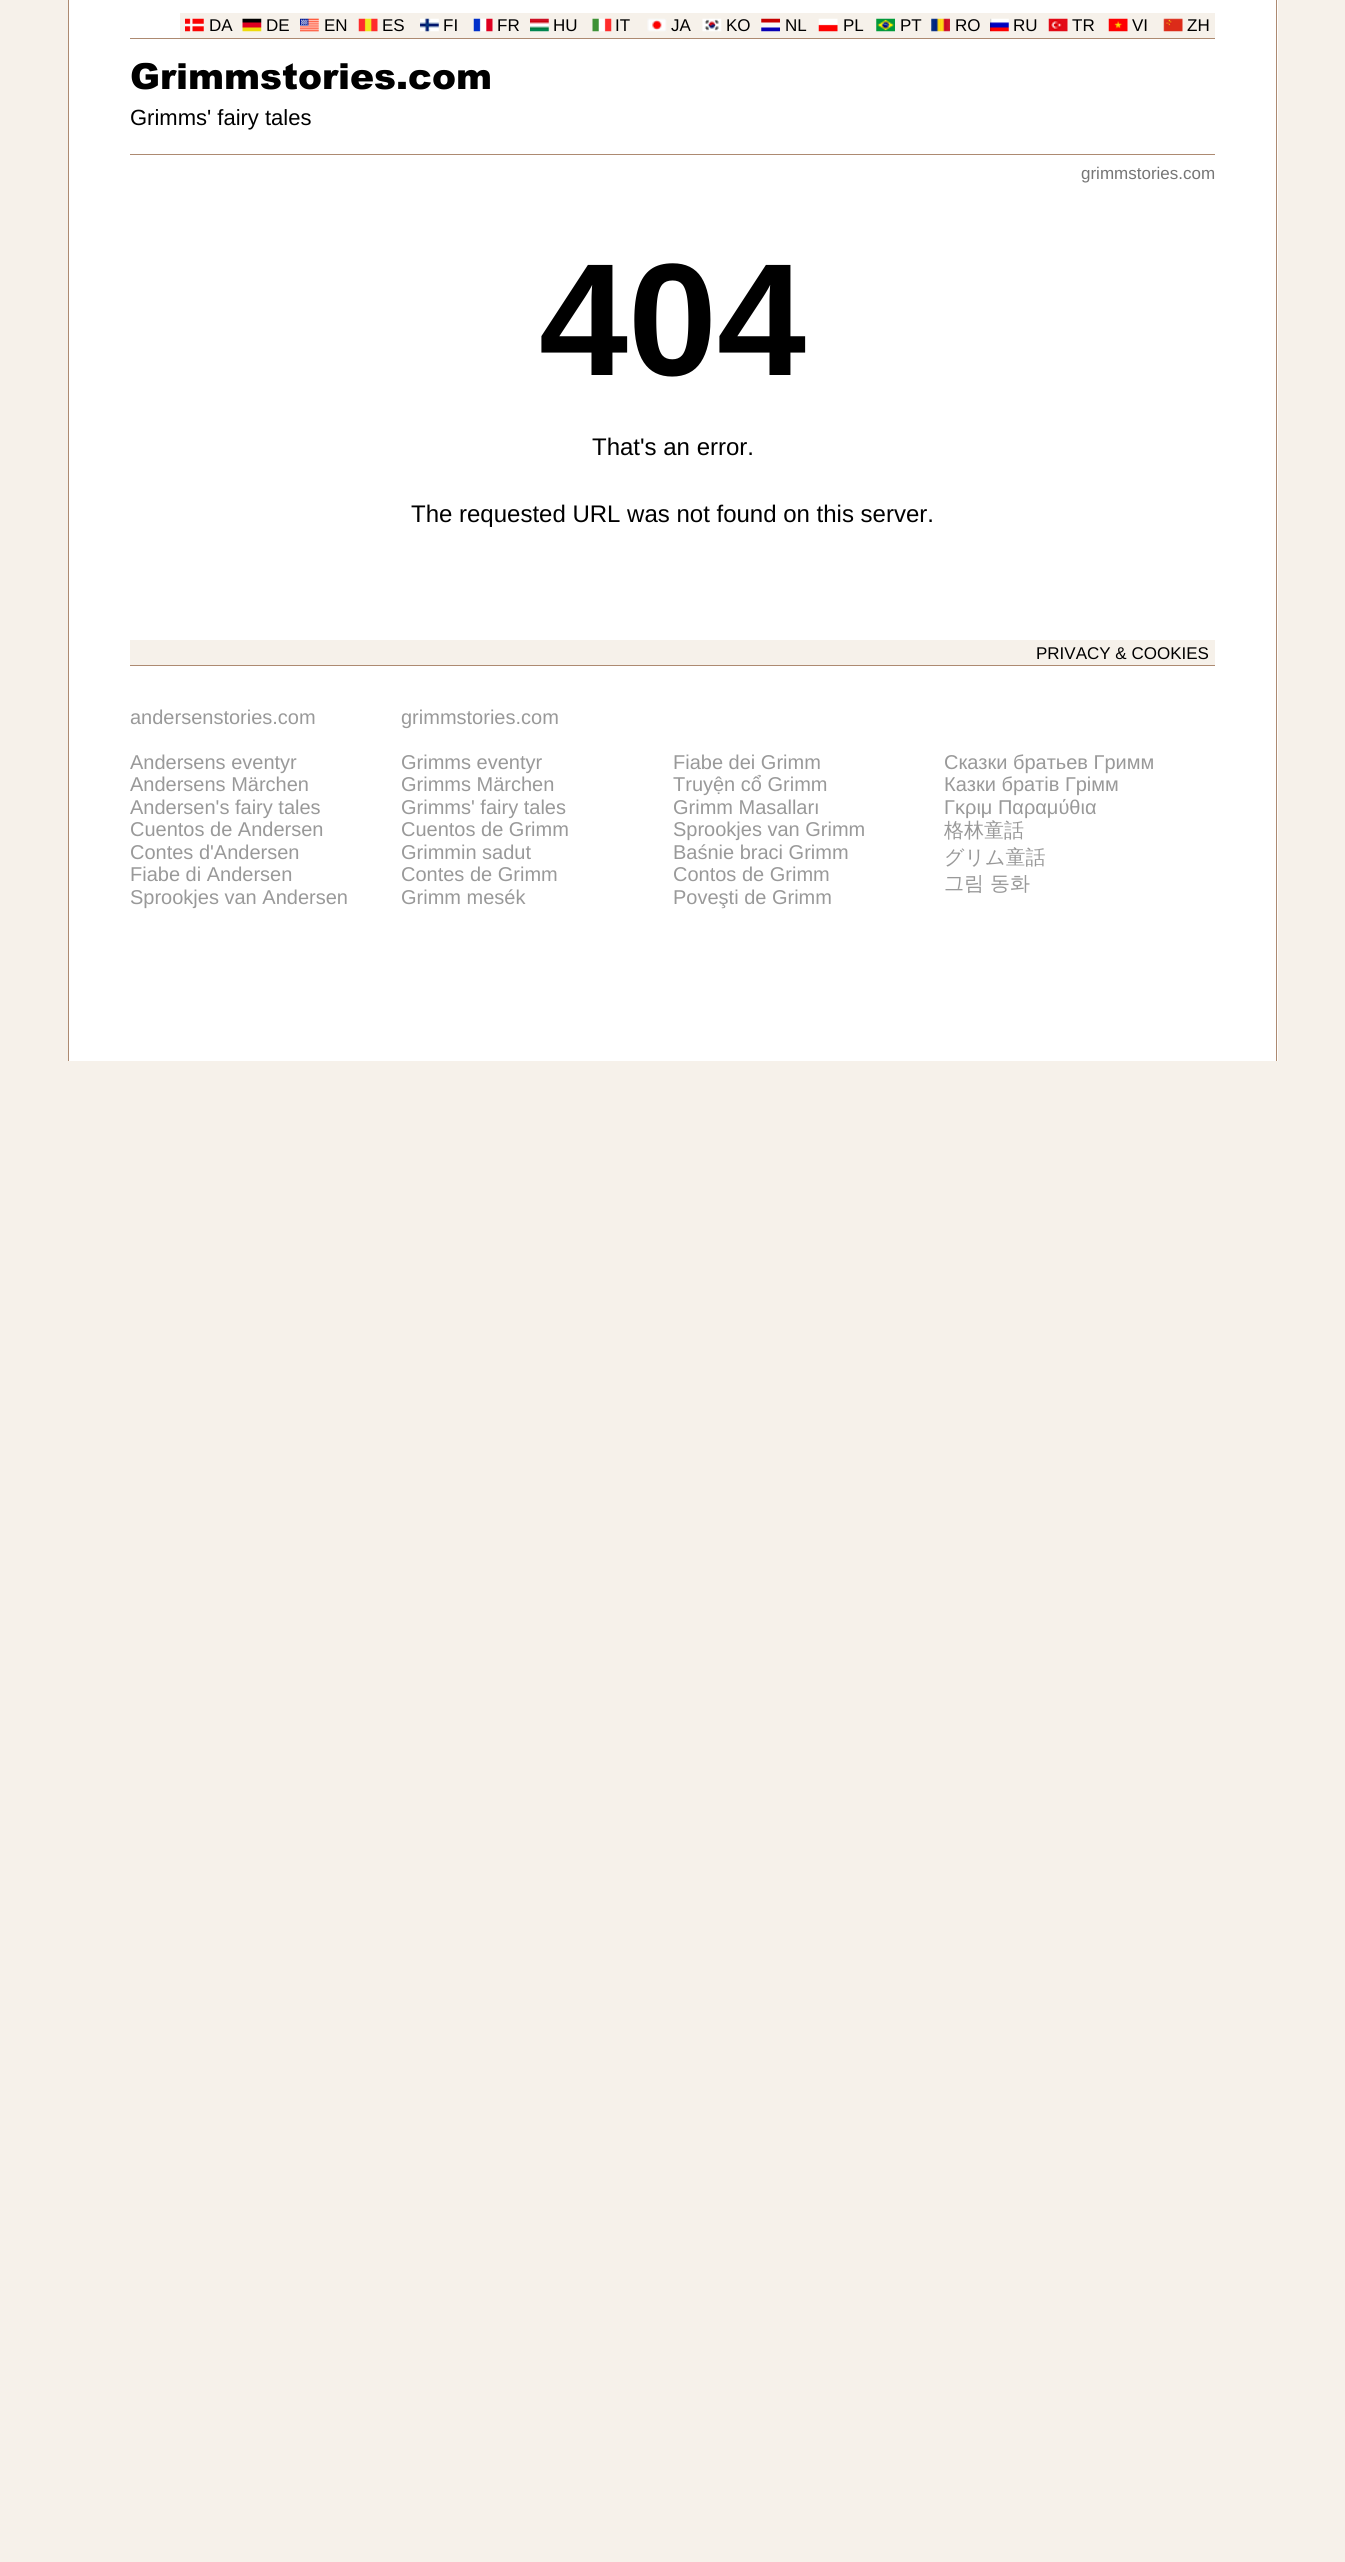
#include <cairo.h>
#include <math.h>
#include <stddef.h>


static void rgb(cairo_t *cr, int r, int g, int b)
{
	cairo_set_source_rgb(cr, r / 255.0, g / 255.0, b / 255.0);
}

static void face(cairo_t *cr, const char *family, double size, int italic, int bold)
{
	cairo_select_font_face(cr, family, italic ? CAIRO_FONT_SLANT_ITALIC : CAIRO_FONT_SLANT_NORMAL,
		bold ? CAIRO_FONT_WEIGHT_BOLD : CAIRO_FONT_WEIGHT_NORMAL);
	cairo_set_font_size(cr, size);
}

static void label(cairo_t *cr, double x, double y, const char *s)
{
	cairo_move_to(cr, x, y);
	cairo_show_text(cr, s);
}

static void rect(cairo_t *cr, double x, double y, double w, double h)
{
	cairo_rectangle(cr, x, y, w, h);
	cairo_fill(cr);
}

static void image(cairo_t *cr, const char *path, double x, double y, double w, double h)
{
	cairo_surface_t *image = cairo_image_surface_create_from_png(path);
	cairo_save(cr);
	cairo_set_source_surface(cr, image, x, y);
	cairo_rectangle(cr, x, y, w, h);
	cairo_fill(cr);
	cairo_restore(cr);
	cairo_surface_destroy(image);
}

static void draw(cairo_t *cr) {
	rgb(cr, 246, 241, 234);
	cairo_paint(cr);
	rgb(cr, 255, 255, 255);
	rect(cr, 69, 0, 1209, 1061);
	rgb(cr, 173, 138, 113);
	rect(cr, 1276, 0, 1, 1061);
	rect(cr, 68, 0, 1, 1061);
	rect(cr, 130, 154, 1085, 1);
	rect(cr, 130, 38, 1085, 1);
	rgb(cr, 246, 241, 234);
	rect(cr, 180, 13, 1035, 25);
	image(cr, "image0.png", 185, 18, 19, 14);
	face(cr, "Liberation Sans", 17, 0, 0);
	rgb(cr, 0, 0, 0);
	label(cr, 209, 31, "DA");
	image(cr, "image1.png", 242, 18, 20, 14);
	label(cr, 266, 31, "DE");
	image(cr, "image2.png", 300, 18, 19, 14);
	label(cr, 324, 31, "EN");
	image(cr, "image3.png", 358, 18, 20, 14);
	label(cr, 382, 31, "ES");
	image(cr, "image4.png", 420, 18, 19, 14);
	label(cr, 443, 31, "FI");
	image(cr, "image5.png", 473, 18, 20, 14);
	label(cr, 497, 31, "FR");
	image(cr, "image6.png", 530, 18, 19, 14);
	label(cr, 553, 31, "HU");
	image(cr, "image7.png", 592, 18, 20, 14);
	label(cr, 615, 31, "IT");
	image(cr, "image8.png", 647, 18, 20, 14);
	label(cr, 671, 31, "JA");
	image(cr, "image9.png", 702, 18, 20, 14);
	label(cr, 726, 31, "KO");
	image(cr, "image10.png", 761, 18, 19, 14);
	label(cr, 785, 31, "NL");
	image(cr, "image11.png", 818, 18, 20, 14);
	label(cr, 843, 31, "PL");
	image(cr, "image12.png", 876, 18, 19, 14);
	label(cr, 900, 31, "PT");
	image(cr, "image13.png", 931, 18, 19, 14);
	label(cr, 955, 31, "RO");
	image(cr, "image14.png", 990, 18, 19, 14);
	label(cr, 1013, 31, "RU");
	image(cr, "image15.png", 1048, 18, 20, 14);
	label(cr, 1072, 31, "TR");
	image(cr, "image16.png", 1108, 18, 20, 14);
	label(cr, 1132, 31, "VI");
	image(cr, "image17.png", 1163, 18, 20, 14);
	label(cr, 1187, 31, "ZH");
	face(cr, "Arial Black", 36, 0, 0);
	label(cr, 130, 89, "Grimmstories.com");
	face(cr, "Liberation Sans", 22, 0, 0);
	label(cr, 130, 125, "Grimms' fairy tales");
	face(cr, "Liberation Sans", 17, 0, 0);
	rgb(cr, 118, 118, 118);
	label(cr, 1081, 179, "grimmstories.com");
	face(cr, "Liberation Sans", 160, 0, 1);
	rgb(cr, 0, 0, 0);
	label(cr, 539, 375, "404");
	face(cr, "Liberation Sans", 24, 0, 0);
	label(cr, 592, 455, "That's an error.");
	label(cr, 411, 522, "The requested URL was not found on this server.");
	rgb(cr, 246, 241, 234);
	rect(cr, 130, 640, 1085, 25);
	rgb(cr, 173, 138, 113);
	rect(cr, 130, 665, 1085, 1);
	face(cr, "Liberation Sans", 17, 0, 0);
	rgb(cr, 0, 0, 0);
	label(cr, 1036, 659, "PRIVACY & COOKIES");
	face(cr, "Liberation Sans", 20, 0, 0);
	rgb(cr, 153, 153, 153);
	label(cr, 130, 724, "andersenstories.com");
	label(cr, 130, 769, "Andersens eventyr");
	label(cr, 130, 791, "Andersens Märchen");
	label(cr, 130, 814, "Andersen's fairy tales");
	label(cr, 130, 836, "Cuentos de Andersen");
	label(cr, 130, 859, "Contes d'Andersen");
	label(cr, 130, 881, "Fiabe di Andersen");
	label(cr, 130, 904, "Sprookjes van Andersen");
	label(cr, 401, 724, "grimmstories.com");
	label(cr, 401, 769, "Grimms eventyr");
	label(cr, 401, 791, "Grimms Märchen");
	label(cr, 401, 814, "Grimms' fairy tales");
	label(cr, 401, 836, "Cuentos de Grimm");
	label(cr, 401, 859, "Grimmin sadut");
	label(cr, 401, 881, "Contes de Grimm");
	label(cr, 401, 904, "Grimm mesék");
	label(cr, 673, 769, "Fiabe dei Grimm");
	label(cr, 673, 791, "Truyện cổ Grimm");
	label(cr, 673, 814, "Grimm Masalları");
	label(cr, 673, 836, "Sprookjes van Grimm");
	label(cr, 673, 859, "Baśnie braci Grimm");
	label(cr, 673, 881, "Contos de Grimm");
	label(cr, 673, 904, "Poveşti de Grimm");
	label(cr, 944, 769, "Сказки братьев Гримм");
	label(cr, 944, 791, "Казки братів Грімм");
	label(cr, 944, 814, "Γκριμ Παραμύθια");
	face(cr, "WenQuanYi Zen Hei Medium", 20, 0, 0);
	label(cr, 944, 837, "格林童話");
	label(cr, 944, 864, "グリム童話");
	label(cr, 944, 890, "그림 동화");
}

int main(void) {
	cairo_surface_t *surface = cairo_image_surface_create(CAIRO_FORMAT_RGB24, 1345, 2562);
	cairo_t *cr = cairo_create(surface);
	cairo_font_options_t *options = cairo_font_options_create();
	cairo_font_options_set_hint_metrics(options, CAIRO_HINT_METRICS_OFF);
	cairo_font_options_set_hint_style(options, CAIRO_HINT_STYLE_NONE);
	cairo_set_font_options(cr, options);
	cairo_set_miter_limit(cr, 4);
	draw(cr);
	cairo_surface_write_to_png(surface, "render.png");
	cairo_font_options_destroy(options);
	cairo_destroy(cr);
	cairo_surface_destroy(surface);
	return 0;
}
